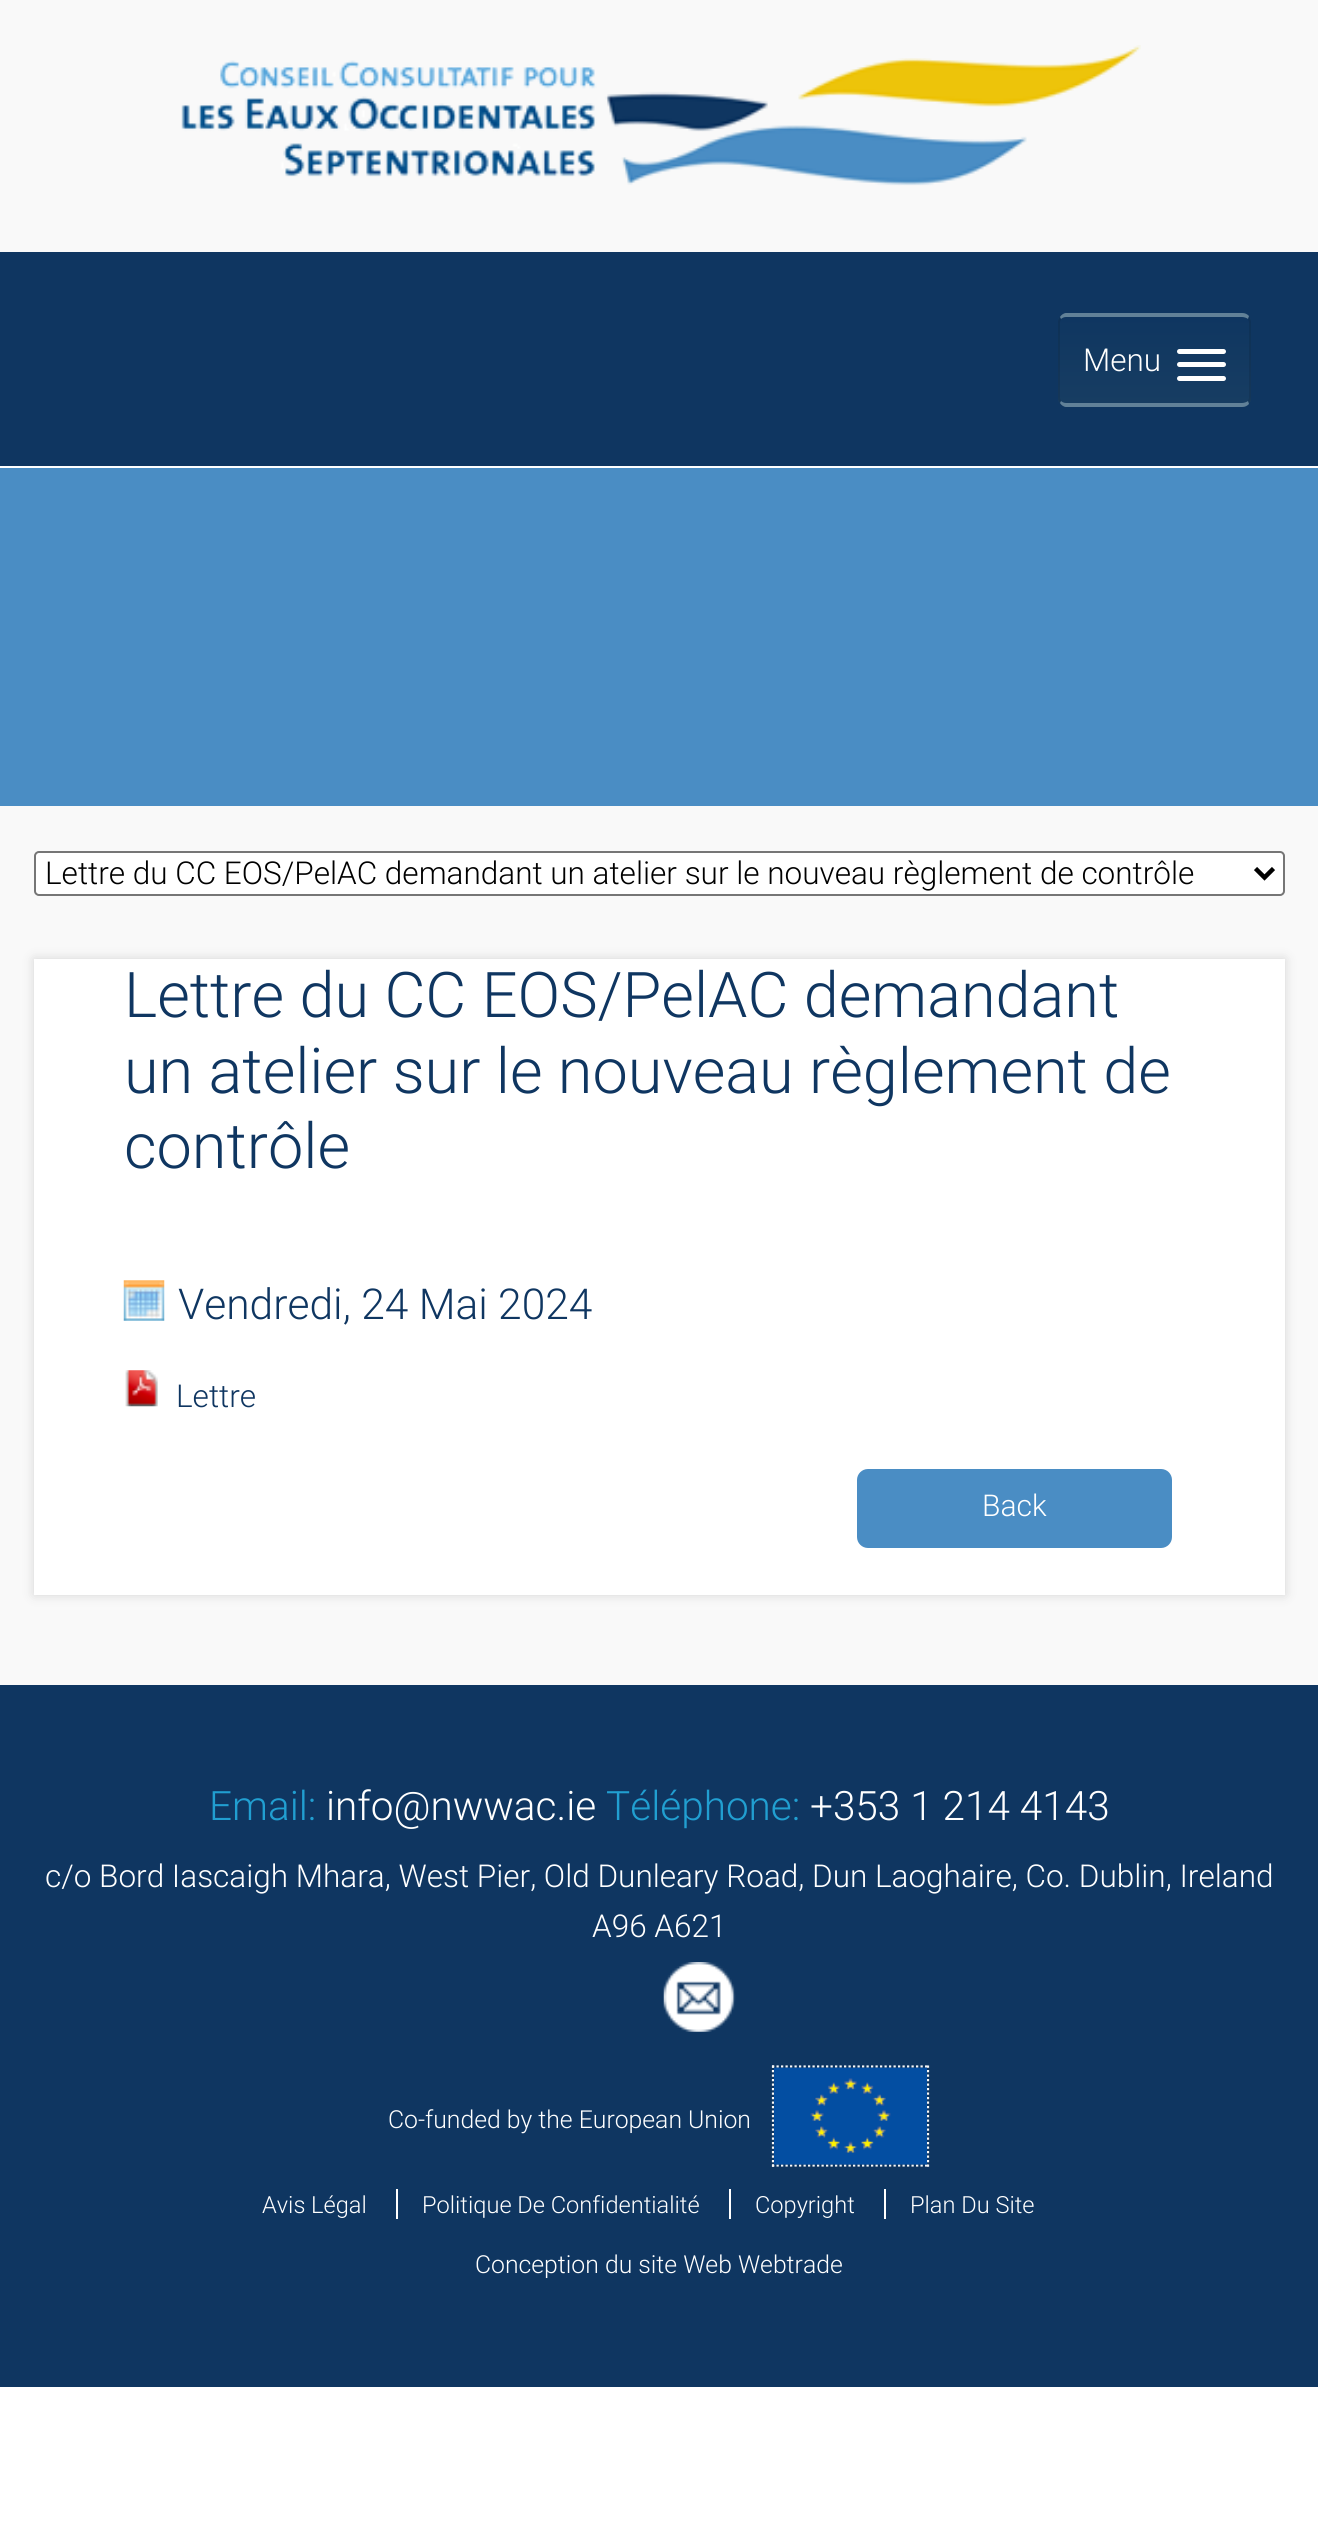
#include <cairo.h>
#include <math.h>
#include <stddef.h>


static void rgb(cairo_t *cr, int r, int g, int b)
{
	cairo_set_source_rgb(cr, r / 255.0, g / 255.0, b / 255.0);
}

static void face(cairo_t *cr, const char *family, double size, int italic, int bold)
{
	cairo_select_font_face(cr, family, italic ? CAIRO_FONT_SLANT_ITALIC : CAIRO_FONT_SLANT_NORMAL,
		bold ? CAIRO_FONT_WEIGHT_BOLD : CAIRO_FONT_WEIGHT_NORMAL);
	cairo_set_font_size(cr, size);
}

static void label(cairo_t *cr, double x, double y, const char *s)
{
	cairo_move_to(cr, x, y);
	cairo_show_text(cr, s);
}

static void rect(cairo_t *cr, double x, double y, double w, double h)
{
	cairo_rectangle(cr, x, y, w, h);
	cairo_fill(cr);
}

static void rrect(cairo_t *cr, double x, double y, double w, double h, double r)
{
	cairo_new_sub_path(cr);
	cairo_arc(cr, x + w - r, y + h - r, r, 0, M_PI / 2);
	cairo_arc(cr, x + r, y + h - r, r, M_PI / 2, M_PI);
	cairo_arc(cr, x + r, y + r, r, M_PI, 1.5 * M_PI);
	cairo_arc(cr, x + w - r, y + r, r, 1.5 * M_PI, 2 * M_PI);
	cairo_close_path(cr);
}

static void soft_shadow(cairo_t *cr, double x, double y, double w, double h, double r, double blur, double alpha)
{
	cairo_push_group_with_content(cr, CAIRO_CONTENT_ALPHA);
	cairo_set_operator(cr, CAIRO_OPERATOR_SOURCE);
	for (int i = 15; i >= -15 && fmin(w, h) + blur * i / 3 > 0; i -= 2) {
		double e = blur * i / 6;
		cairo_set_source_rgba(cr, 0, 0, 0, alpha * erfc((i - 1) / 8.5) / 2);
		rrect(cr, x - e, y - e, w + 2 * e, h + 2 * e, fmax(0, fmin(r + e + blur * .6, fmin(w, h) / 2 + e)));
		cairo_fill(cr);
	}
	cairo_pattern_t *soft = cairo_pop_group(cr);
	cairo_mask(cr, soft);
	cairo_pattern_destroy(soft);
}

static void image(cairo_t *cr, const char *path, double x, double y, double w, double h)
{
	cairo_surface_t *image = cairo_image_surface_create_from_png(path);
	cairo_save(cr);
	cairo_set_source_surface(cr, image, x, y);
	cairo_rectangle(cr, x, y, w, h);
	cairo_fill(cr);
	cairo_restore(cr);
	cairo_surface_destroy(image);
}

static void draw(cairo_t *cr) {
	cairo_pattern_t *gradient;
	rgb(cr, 255, 255, 255);
	cairo_paint(cr);
	rgb(cr, 249, 249, 249);
	rect(cr, 0, 0, 1318, 252);
	image(cr, "image0.png", 181, 45, 960, 141);
	rgb(cr, 15, 54, 97);
	rect(cr, 0, 252, 1318, 214);
	rgb(cr, 23, 61, 98);
	rrect(cr, 1058, 313, 193, 94, 9);
	cairo_fill(cr);
	cairo_save(cr);
	rrect(cr, 1058, 313, 193, 94, 9);
	cairo_clip(cr);
	gradient = cairo_pattern_create_linear(1154, 317, 1154, 403);
	cairo_pattern_add_color_stop_rgba(gradient, 0, 0.059, 0.212, 0.38, 1);
	cairo_pattern_add_color_stop_rgba(gradient, 1, 0.09, 0.239, 0.384, 1);
	cairo_set_source(cr, gradient);
	cairo_pattern_destroy(gradient);
	rect(cr, 1058, 317, 193, 86);
	cairo_restore(cr);
	rgb(cr, 97, 129, 152);
	cairo_new_path(cr);
	cairo_move_to(cr, 1066, 313);
	cairo_curve_to(cr, 1064, 313, 1061, 315, 1060, 317);
	cairo_line_to(cr, 1061, 319);
	cairo_curve_to(cr, 1062, 318, 1064, 317, 1066, 317);
	cairo_line_to(cr, 1242, 317);
	cairo_curve_to(cr, 1244, 317, 1247, 318, 1248, 319);
	cairo_line_to(cr, 1249, 316);
	cairo_curve_to(cr, 1247, 314, 1245, 313, 1242, 313);
	cairo_close_path(cr);
	cairo_fill(cr);
	cairo_set_source_rgba(cr, 0, 0, 0, 0.1);
	cairo_new_path(cr);
	cairo_move_to(cr, 1249, 316);
	cairo_curve_to(cr, 1250, 318, 1251, 320, 1251, 322);
	cairo_line_to(cr, 1251, 398);
	cairo_curve_to(cr, 1251, 400, 1250, 402, 1249, 404);
	cairo_line_to(cr, 1248, 401);
	cairo_line_to(cr, 1249, 398);
	cairo_line_to(cr, 1249, 322);
	cairo_line_to(cr, 1248, 319);
	cairo_close_path(cr);
	cairo_fill(cr);
	rgb(cr, 97, 129, 152);
	cairo_new_path(cr);
	cairo_move_to(cr, 1249, 404);
	cairo_curve_to(cr, 1247, 406, 1245, 407, 1242, 407);
	cairo_line_to(cr, 1066, 407);
	cairo_curve_to(cr, 1064, 407, 1061, 405, 1060, 403);
	cairo_line_to(cr, 1061, 401);
	cairo_curve_to(cr, 1062, 402, 1064, 403, 1066, 403);
	cairo_line_to(cr, 1242, 403);
	cairo_curve_to(cr, 1244, 403, 1247, 402, 1248, 401);
	cairo_close_path(cr);
	cairo_fill(cr);
	cairo_set_source_rgba(cr, 0, 0, 0, 0.1);
	cairo_new_path(cr);
	cairo_move_to(cr, 1060, 317);
	cairo_curve_to(cr, 1059, 318, 1058, 320, 1058, 322);
	cairo_line_to(cr, 1058, 398);
	cairo_curve_to(cr, 1058, 400, 1059, 402, 1060, 403);
	cairo_line_to(cr, 1061, 401);
	cairo_line_to(cr, 1060, 398);
	cairo_line_to(cr, 1060, 360);
	cairo_line_to(cr, 1060, 322);
	cairo_line_to(cr, 1061, 319);
	cairo_close_path(cr);
	cairo_fill(cr);
	face(cr, "Roboto Light", 31.5, 0, 0);
	rgb(cr, 255, 255, 255);
	label(cr, 1083, 371, "Menu");
	rrect(cr, 1177, 349, 49, 5, 2.5);
	cairo_fill(cr);
	rrect(cr, 1177, 362, 49, 5, 2.5);
	cairo_fill(cr);
	rrect(cr, 1177, 376, 49, 5, 2.5);
	cairo_fill(cr);
	rgb(cr, 74, 141, 196);
	rect(cr, 0, 468, 1318, 338);
	rgb(cr, 249, 249, 249);
	rect(cr, 0, 806, 1318, 879);
	rgb(cr, 255, 255, 255);
	rrect(cr, 35, 852, 1249, 43, 4);
	cairo_fill_preserve(cr);
	rgb(cr, 118, 118, 118);
	cairo_stroke(cr);
	cairo_new_path(cr);
	cairo_move_to(cr, 1255.5, 868.5);
	cairo_line_to(cr, 1264.5, 877.5);
	cairo_line_to(cr, 1273.5, 868.5);
	rgb(cr, 0, 0, 0);
	cairo_set_line_width(cr, 4.5);
	cairo_stroke(cr);
	label(cr, 45, 884, "Lettre du CC EOS/PelAC demandant un atelier sur le nouveau règlement de contrôle");
	rgb(cr, 213, 213, 213);
	soft_shadow(cr, 34, 959, 1251, 636, 0, 5.5, 1);
	rgb(cr, 255, 255, 255);
	rect(cr, 34, 959, 1251, 636);
	face(cr, "Roboto Light", 63, 0, 0);
	rgb(cr, 15, 54, 97);
	label(cr, 124, 1017, "Lettre du CC EOS/PelAC demandant");
	label(cr, 124, 1093, "un atelier sur le nouveau règlement de");
	label(cr, 124, 1168, "contrôle");
	image(cr, "image1.png", 123, 1280, 42, 41);
	face(cr, "Roboto Light", 42.5, 0, 0);
	label(cr, 178, 1319, "Vendredi, 24 Mai 2024");
	image(cr, "image2.png", 125, 1370, 33, 37);
	face(cr, "Roboto Light", 31.5, 0, 0);
	label(cr, 176, 1407, "Lettre");
	rgb(cr, 74, 141, 196);
	rrect(cr, 857, 1469, 315, 79, 11);
	cairo_fill(cr);
	face(cr, "Roboto Light", 30, 0, 0);
	rgb(cr, 255, 255, 255);
	label(cr, 982, 1516, "Back");
	rgb(cr, 15, 54, 97);
	rect(cr, 0, 1685, 1318, 702);
	face(cr, "Roboto Light", 40.5, 0, 0);
	rgb(cr, 33, 159, 209);
	label(cr, 209, 1820, "Email:");
	rgb(cr, 255, 255, 255);
	label(cr, 326, 1820, "info@nwwac.ie");
	rgb(cr, 33, 159, 209);
	label(cr, 606, 1820, "Téléphone:");
	rgb(cr, 255, 255, 255);
	label(cr, 810, 1820, "+353 1 214 4143");
	face(cr, "Roboto Light", 31.5, 0, 0);
	label(cr, 45, 1887, "c/o Bord Iascaigh Mhara, West Pier, Old Dunleary Road, Dun Laoghaire, Co. Dublin, Ireland");
	label(cr, 592, 1937, "A96 A621");
	image(cr, "image3.png", 663, 1962, 73, 70);
	cairo_new_path(cr);
	cairo_move_to(cr, 772, 2066.5);
	cairo_line_to(cr, 929, 2066.5);
	rgb(cr, 249, 249, 249);
	cairo_set_line_width(cr, 2.2);
	cairo_set_dash(cr, (double[]){2.25, 2.25}, 2, 0);
	cairo_stroke(cr);
	cairo_new_path(cr);
	cairo_move_to(cr, 928, 2065.5);
	cairo_line_to(cr, 928, 2167);
	cairo_stroke(cr);
	cairo_new_path(cr);
	cairo_move_to(cr, 772, 2165.5);
	cairo_line_to(cr, 929, 2165.5);
	cairo_stroke(cr);
	cairo_new_path(cr);
	cairo_move_to(cr, 773, 2065.5);
	cairo_line_to(cr, 773, 2167);
	cairo_stroke(cr);
	face(cr, "Roboto Light", 24.75, 0, 0);
	rgb(cr, 255, 255, 255);
	label(cr, 388, 2128, "Co-funded by the European Union");
	image(cr, "image4.png", 774, 2067, 153, 98);
	face(cr, "Roboto Light", 23.6, 0, 0);
	label(cr, 262, 2213, "Avis Légal");
	label(cr, 422, 2213, "Politique De Confidentialité");
	rect(cr, 396, 2189, 2, 30);
	label(cr, 755, 2213, "Copyright");
	rect(cr, 729, 2189, 2, 30);
	label(cr, 910, 2213, "Plan Du Site");
	rect(cr, 884, 2189, 2, 30);
	face(cr, "Roboto Light", 24.75, 0, 0);
	label(cr, 475, 2273, "Conception du site Web Webtrade");
}

int main(void) {
	cairo_surface_t *surface = cairo_image_surface_create(CAIRO_FORMAT_RGB24, 1318, 2546);
	cairo_t *cr = cairo_create(surface);
	cairo_font_options_t *options = cairo_font_options_create();
	cairo_font_options_set_hint_metrics(options, CAIRO_HINT_METRICS_OFF);
	cairo_font_options_set_hint_style(options, CAIRO_HINT_STYLE_NONE);
	cairo_set_font_options(cr, options);
	cairo_set_miter_limit(cr, 4);
	draw(cr);
	cairo_surface_write_to_png(surface, "render.png");
	cairo_font_options_destroy(options);
	cairo_destroy(cr);
	cairo_surface_destroy(surface);
	return 0;
}
